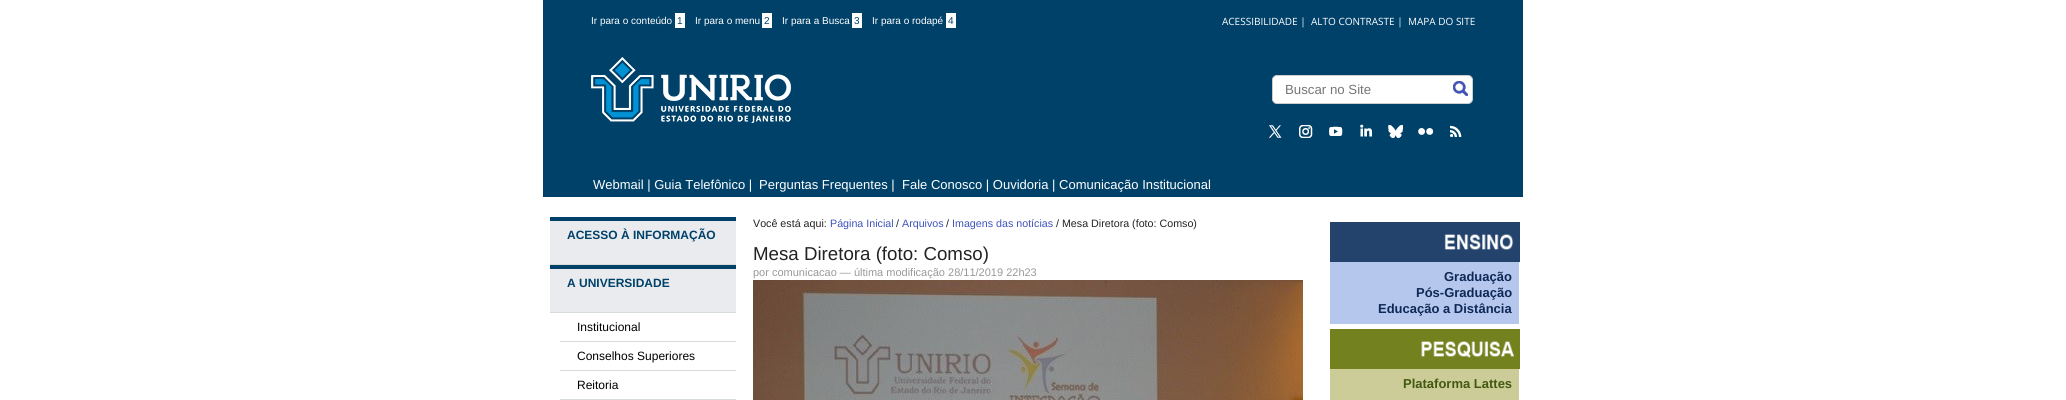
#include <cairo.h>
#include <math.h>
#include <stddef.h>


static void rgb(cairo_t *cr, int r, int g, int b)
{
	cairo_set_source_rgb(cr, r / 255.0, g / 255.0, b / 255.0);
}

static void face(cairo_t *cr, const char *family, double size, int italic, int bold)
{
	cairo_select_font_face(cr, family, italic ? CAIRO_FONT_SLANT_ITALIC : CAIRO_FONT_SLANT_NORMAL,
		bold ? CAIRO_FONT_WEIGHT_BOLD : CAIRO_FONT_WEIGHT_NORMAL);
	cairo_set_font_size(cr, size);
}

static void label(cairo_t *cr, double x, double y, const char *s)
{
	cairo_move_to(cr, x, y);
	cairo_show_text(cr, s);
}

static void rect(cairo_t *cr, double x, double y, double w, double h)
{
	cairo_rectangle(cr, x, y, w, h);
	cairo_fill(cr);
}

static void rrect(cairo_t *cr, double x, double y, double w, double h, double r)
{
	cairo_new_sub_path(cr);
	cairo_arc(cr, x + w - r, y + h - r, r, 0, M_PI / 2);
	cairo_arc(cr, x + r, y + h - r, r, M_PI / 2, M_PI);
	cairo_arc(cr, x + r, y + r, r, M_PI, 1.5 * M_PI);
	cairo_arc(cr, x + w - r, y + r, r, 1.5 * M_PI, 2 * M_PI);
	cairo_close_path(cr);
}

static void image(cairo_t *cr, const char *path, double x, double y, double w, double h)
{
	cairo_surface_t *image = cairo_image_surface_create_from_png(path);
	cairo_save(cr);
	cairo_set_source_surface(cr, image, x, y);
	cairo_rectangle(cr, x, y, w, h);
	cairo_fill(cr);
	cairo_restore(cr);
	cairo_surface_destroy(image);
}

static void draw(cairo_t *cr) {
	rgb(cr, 255, 255, 255);
	cairo_paint(cr);
	rgb(cr, 0, 65, 105);
	rect(cr, 543, 0, 980, 197);
	face(cr, "Liberation Sans", 10, 0, 0);
	rgb(cr, 255, 255, 255);
	label(cr, 591, 24, "Ir para o conteúdo");
	rect(cr, 675, 13, 10, 15);
	rgb(cr, 0, 65, 105);
	label(cr, 677, 24, "1");
	rgb(cr, 255, 255, 255);
	label(cr, 695, 24, "Ir para o menu");
	rect(cr, 762, 13, 10, 15);
	rgb(cr, 0, 65, 105);
	label(cr, 764, 24, "2");
	rgb(cr, 255, 255, 255);
	label(cr, 782, 24, "Ir para a Busca");
	rect(cr, 852, 13, 10, 15);
	rgb(cr, 0, 65, 105);
	label(cr, 854, 24, "3");
	rgb(cr, 255, 255, 255);
	label(cr, 872, 24, "Ir para o rodapé");
	rect(cr, 946, 13, 10, 15);
	rgb(cr, 0, 65, 105);
	label(cr, 948, 24, "4");
	face(cr, "Open Sans", 10, 0, 0);
	rgb(cr, 255, 255, 255);
	label(cr, 1222, 25, "ACESSIBILIDADE |");
	label(cr, 1311, 25, "ALTO CONTRASTE |");
	label(cr, 1408, 25, "MAPA DO SITE");
	image(cr, "image0.png", 591, 57, 200, 66);
	rrect(cr, 1272.5, 75.5, 200, 28, 4.5);
	cairo_fill_preserve(cr);
	rgb(cr, 204, 204, 204);
	cairo_set_line_width(cr, 1);
	cairo_stroke(cr);
	face(cr, "Liberation Sans", 13.25, 0, 0);
	rgb(cr, 117, 117, 117);
	label(cr, 1285, 94, "Buscar no Site");
	image(cr, "image1.png", 1453, 81, 15, 15);
	image(cr, "image2.png", 1269, 125, 13, 13);
	image(cr, "image3.png", 1299, 125, 14, 13);
	image(cr, "image4.png", 1329, 126, 14, 10);
	image(cr, "image5.png", 1360, 124, 12, 13);
	image(cr, "image6.png", 1388, 125, 15, 13);
	image(cr, "image7.png", 1418, 128, 15, 7);
	image(cr, "image8.png", 1450, 125, 12, 12);
	face(cr, "Liberation Sans", 13, 0, 0);
	rgb(cr, 255, 255, 255);
	label(cr, 593, 189, "Webmail | Guia Telefônico |");
	label(cr, 759, 189, "Perguntas Frequentes |");
	label(cr, 902, 189, "Fale Conosco | Ouvidoria | Comunicação Institucional");
	rgb(cr, 234, 235, 238);
	rect(cr, 550, 221, 186, 43);
	rgb(cr, 0, 65, 105);
	rect(cr, 550, 217, 186, 4);
	rgb(cr, 214, 220, 215);
	rect(cr, 550, 264, 186, 1);
	face(cr, "Liberation Sans", 12, 0, 1);
	rgb(cr, 0, 65, 105);
	label(cr, 567, 239, "ACESSO À INFORMAÇÃO");
	rgb(cr, 234, 235, 238);
	rect(cr, 550, 269, 186, 43);
	rgb(cr, 0, 65, 105);
	rect(cr, 550, 265, 186, 4);
	rgb(cr, 214, 220, 215);
	rect(cr, 550, 312, 186, 1);
	rgb(cr, 0, 65, 105);
	label(cr, 567, 287, "A UNIVERSIDADE");
	rgb(cr, 214, 220, 215);
	rect(cr, 560, 341, 176, 1);
	face(cr, "Liberation Sans", 12, 0, 0);
	rgb(cr, 0, 0, 0);
	label(cr, 577, 331, "Institucional");
	rgb(cr, 214, 220, 215);
	rect(cr, 560, 370, 176, 1);
	rgb(cr, 0, 0, 0);
	label(cr, 577, 360, "Conselhos Superiores");
	rgb(cr, 214, 220, 215);
	rect(cr, 560, 399, 176, 1);
	rgb(cr, 0, 0, 0);
	label(cr, 577, 389, "Reitoria");
	face(cr, "Liberation Sans", 10.7, 0, 0);
	rgb(cr, 34, 34, 34);
	label(cr, 753, 227, "Você está aqui:");
	rgb(cr, 64, 83, 188);
	label(cr, 830, 227, "Página Inicial");
	rgb(cr, 34, 34, 34);
	label(cr, 896, 227, "/");
	rgb(cr, 64, 83, 188);
	label(cr, 902, 227, "Arquivos");
	rgb(cr, 34, 34, 34);
	label(cr, 946, 227, "/");
	rgb(cr, 64, 83, 188);
	label(cr, 952, 227, "Imagens das notícias");
	rgb(cr, 34, 34, 34);
	label(cr, 1056, 227, "/ Mesa Diretora (foto: Comso)");
	face(cr, "Liberation Sans", 18.7, 0, 0);
	label(cr, 753, 260, "Mesa Diretora (foto: Comso)");
	face(cr, "Liberation Sans", 11, 0, 0);
	rgb(cr, 153, 153, 153);
	label(cr, 753, 276, "por comunicacao — última modificação 28/11/2019 22h23");
	image(cr, "image9.png", 753, 280, 550, 120);
	image(cr, "image10.png", 1330, 222, 190, 40);
	rgb(cr, 182, 199, 238);
	rect(cr, 1330, 262, 189, 62);
	face(cr, "Liberation Sans", 13, 0, 1);
	rgb(cr, 14, 41, 86);
	label(cr, 1444, 281, "Graduação");
	label(cr, 1416, 297, "Pós-Graduação");
	label(cr, 1378, 313, "Educação a Distância");
	image(cr, "image11.png", 1330, 329, 190, 40);
	rgb(cr, 204, 204, 153);
	rect(cr, 1330, 369, 189, 31);
	rgb(cr, 68, 89, 16);
	label(cr, 1403, 388, "Plataforma Lattes");
}

int main(void) {
	cairo_surface_t *surface = cairo_image_surface_create(CAIRO_FORMAT_RGB24, 2066, 400);
	cairo_t *cr = cairo_create(surface);
	cairo_font_options_t *options = cairo_font_options_create();
	cairo_font_options_set_hint_metrics(options, CAIRO_HINT_METRICS_OFF);
	cairo_font_options_set_hint_style(options, CAIRO_HINT_STYLE_NONE);
	cairo_set_font_options(cr, options);
	cairo_set_miter_limit(cr, 4);
	draw(cr);
	cairo_surface_write_to_png(surface, "render.png");
	cairo_font_options_destroy(options);
	cairo_destroy(cr);
	cairo_surface_destroy(surface);
	return 0;
}
